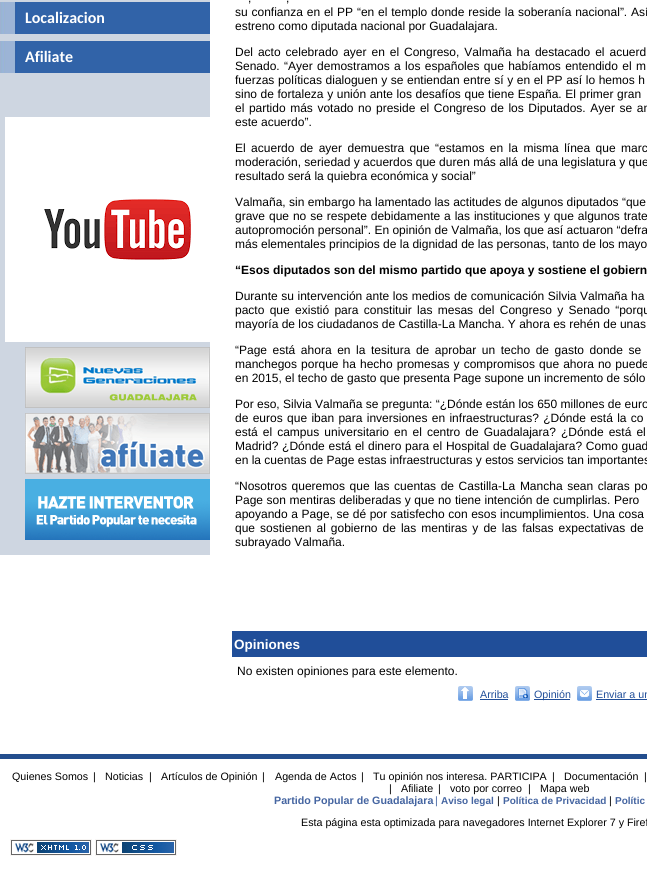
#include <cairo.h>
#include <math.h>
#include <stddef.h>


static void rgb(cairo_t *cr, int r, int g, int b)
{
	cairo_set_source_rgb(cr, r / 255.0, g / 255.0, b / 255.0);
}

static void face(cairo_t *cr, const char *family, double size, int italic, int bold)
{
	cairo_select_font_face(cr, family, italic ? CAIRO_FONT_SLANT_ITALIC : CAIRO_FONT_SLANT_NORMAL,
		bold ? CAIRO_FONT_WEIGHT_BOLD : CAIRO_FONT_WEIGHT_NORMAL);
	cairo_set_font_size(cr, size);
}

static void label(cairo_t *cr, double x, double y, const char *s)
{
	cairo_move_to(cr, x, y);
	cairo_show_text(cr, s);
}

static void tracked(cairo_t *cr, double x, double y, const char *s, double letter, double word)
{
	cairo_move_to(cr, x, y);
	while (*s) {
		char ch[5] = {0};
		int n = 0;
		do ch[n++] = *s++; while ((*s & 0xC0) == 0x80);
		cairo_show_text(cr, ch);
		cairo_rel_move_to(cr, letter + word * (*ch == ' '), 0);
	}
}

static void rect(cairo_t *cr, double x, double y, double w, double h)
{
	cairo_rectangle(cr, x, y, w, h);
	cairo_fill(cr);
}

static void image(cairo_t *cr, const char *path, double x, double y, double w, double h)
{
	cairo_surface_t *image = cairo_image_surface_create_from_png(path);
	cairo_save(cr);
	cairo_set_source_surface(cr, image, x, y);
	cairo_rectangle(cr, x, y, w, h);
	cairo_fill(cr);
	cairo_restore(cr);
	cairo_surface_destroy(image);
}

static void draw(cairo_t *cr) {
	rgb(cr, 255, 255, 255);
	cairo_paint(cr);
	rgb(cr, 206, 214, 225);
	rect(cr, 0, 0, 210, 555);
	rgb(cr, 49, 99, 168);
	rect(cr, 17, 2, 193, 32);
	image(cr, "image0.png", 0, 2, 17, 32);
	face(cr, "Carlito", 16, 0, 1);
	rgb(cr, 255, 255, 255);
	label(cr, 25, 23, "Localizacion");
	rgb(cr, 49, 99, 168);
	rect(cr, 17, 41, 193, 32);
	image(cr, "image0.png", 0, 41, 17, 32);
	rgb(cr, 255, 255, 255);
	label(cr, 25, 62, "Afiliate");
	image(cr, "image1.png", 5, 117, 205, 225);
	image(cr, "image2.png", 25, 347, 185, 61);
	image(cr, "image3.png", 25, 413, 185, 61);
	image(cr, "image4.png", 25, 479, 185, 61);
	face(cr, "Liberation Sans", 12, 0, 0);
	rgb(cr, 0, 0, 0);
	tracked(cr, 248, 2, ",", 0, 1);
	tracked(cr, 286, 2, ",", 0, 1);
	tracked(cr, 235, 16, "su confianza en el PP “en el templo donde reside la soberanía nacional”. Así", 0, 0.5);
	label(cr, 235, 30, "estreno como diputada nacional por Guadalajara.");
	tracked(cr, 235, 56, "Del acto celebrado ayer en el Congreso, Valmaña ha destacado el acuerd", 0, 1.6);
	tracked(cr, 235, 70, "Senado. “Ayer demostramos a los españoles que habíamos entendido el m", 0, 1);
	tracked(cr, 235, 84, "fuerzas políticas dialoguen y se entiendan entre sí y en el PP así lo hemos h", 0, 0.25);
	tracked(cr, 235, 98, "sino de fortaleza y unión ante los desafíos que tiene España. El primer gran", 0, 0.25);
	tracked(cr, 235, 112, "el partido más votado no preside el Congreso de los Diputados. Ayer se an", 0, 1.25);
	label(cr, 235, 126, "este acuerdo”.");
	tracked(cr, 235, 152, "El acuerdo de ayer demuestra que “estamos en la misma línea que marc", 0, 2.1);
	label(cr, 235, 166, "moderación, seriedad y acuerdos que duren más allá de una legislatura y que");
	label(cr, 235, 180, "resultado será la quiebra económica y social”");
	label(cr, 235, 206, "Valmaña, sin embargo ha lamentado las actitudes de algunos diputados “que");
	tracked(cr, 235, 220, "grave que no se respete debidamente a las instituciones y que algunos trate", 0, 0.6);
	label(cr, 235, 234, "autopromoción personal”. En opinión de Valmaña, los que así actuaron “defra");
	label(cr, 235, 248, "más elementales principios de la dignidad de las personas, tanto de los mayo");
	face(cr, "Liberation Sans", 12, 0, 1);
	label(cr, 235, 274, "“Esos diputados son del mismo partido que apoya y sostiene el gobiern");
	face(cr, "Liberation Sans", 12, 0, 0);
	tracked(cr, 235, 300, "Durante su intervención ante los medios de comunicación Silvia Valmaña ha", 0, 0.25);
	tracked(cr, 235, 314, "pacto que existió para constituir las mesas del Congreso y Senado “porqu", 0, 2);
	label(cr, 235, 328, "mayoría de los ciudadanos de Castilla-La Mancha. Y ahora es rehén de unas");
	tracked(cr, 235, 354, "“Page está ahora en la tesitura de aprobar un techo de gasto donde se", 0, 2.25);
	tracked(cr, 235, 368, "manchegos porque ha hecho promesas y compromisos que ahora no puede", 0, 0.75);
	label(cr, 235, 382, "en 2015, el techo de gasto que presenta Page supone un incremento de sólo");
	label(cr, 235, 408, "Por eso, Silvia Valmaña se pregunta: “¿Dónde están los 650 millones de euro");
	tracked(cr, 235, 422, "de euros que iban para inversiones en infraestructuras? ¿Dónde está la co", 0, 1);
	tracked(cr, 235, 436, "está el campus universitario en el centro de Guadalajara? ¿Dónde está el", 0, 1.75);
	tracked(cr, 235, 450, "Madrid? ¿Dónde está el dinero para el Hospital de Guadalajara? Como guad", 0, 0.4);
	label(cr, 235, 464, "en la cuentas de Page estas infraestructuras y estos servicios tan importantes");
	tracked(cr, 235, 490, "“Nosotros queremos que las cuentas de Castilla-La Mancha sean claras po", 0, 1.25);
	tracked(cr, 235, 504, "Page son mentiras deliberadas y que no tiene intención de cumplirlas. Pero", 0, 0.25);
	tracked(cr, 235, 518, "apoyando a Page, se dé por satisfecho con esos incumplimientos. Una cosa", 0, 0.25);
	tracked(cr, 235, 532, "que sostienen al gobierno de las mentiras y de las falsas expectativas de", 0, 1.7);
	label(cr, 235, 546, "subrayado Valmaña.");
	rgb(cr, 32, 78, 153);
	rect(cr, 232, 631, 415, 26);
	face(cr, "Liberation Sans", 13.5, 0, 1);
	rgb(cr, 255, 255, 255);
	label(cr, 234, 649, "Opiniones");
	face(cr, "Liberation Sans", 12, 0, 0);
	rgb(cr, 0, 0, 0);
	label(cr, 237, 675, "No existen opiniones para este elemento.");
	image(cr, "image5.png", 458, 686, 15, 15);
	face(cr, "Liberation Sans", 10.7, 0, 0);
	rgb(cr, 32, 78, 153);
	label(cr, 480, 698, "Arriba");
	rect(cr, 480, 699, 28, 1);
	image(cr, "image6.png", 515, 686, 15, 15);
	rect(cr, 534, 699, 36, 1);
	label(cr, 534, 698, "Opinión");
	image(cr, "image7.png", 577, 686, 15, 15);
	label(cr, 596, 698, "Enviar a un");
	rect(cr, 596, 699, 51, 1);
	rgb(cr, 35, 78, 142);
	rect(cr, 0, 754, 647, 5);
	rgb(cr, 0, 0, 0);
	label(cr, 12, 780, "Quienes Somos");
	label(cr, 93, 780, "|");
	label(cr, 105, 780, "Noticias");
	label(cr, 149, 780, "|");
	label(cr, 161, 780, "Artículos de Opinión");
	label(cr, 262, 780, "|");
	label(cr, 275, 780, "Agenda de Actos");
	label(cr, 361, 780, "|");
	label(cr, 373, 780, "Tu opinión nos interesa. PARTICIPA");
	label(cr, 552, 780, "|");
	label(cr, 564, 780, "Documentación");
	label(cr, 644, 780, "|");
	label(cr, 389, 792, "|");
	label(cr, 401, 792, "Afiliate");
	label(cr, 438, 792, "|");
	label(cr, 450, 792, "voto por correo");
	label(cr, 528, 792, "|");
	label(cr, 540, 792, "Mapa web");
	face(cr, "Liberation Sans", 10.7, 0, 1);
	rgb(cr, 69, 101, 161);
	label(cr, 274, 804, "Partido Popular de Guadalajara");
	face(cr, "Liberation Sans", 10.7, 0, 0);
	label(cr, 435, 804, "|");
	face(cr, "Liberation Sans", 10, 0, 1);
	label(cr, 441, 804, "Aviso legal");
	face(cr, "Liberation Sans", 10.7, 0, 0);
	rgb(cr, 0, 0, 0);
	label(cr, 497, 804, "|");
	face(cr, "Liberation Sans", 10, 0, 1);
	rgb(cr, 69, 101, 161);
	label(cr, 503, 804, "Política de Privacidad");
	face(cr, "Liberation Sans", 10.7, 0, 0);
	rgb(cr, 0, 0, 0);
	label(cr, 609, 804, "|");
	face(cr, "Liberation Sans", 10, 0, 1);
	rgb(cr, 69, 101, 161);
	label(cr, 615, 804, "Polític");
	face(cr, "Liberation Sans", 10.7, 0, 0);
	rgb(cr, 0, 0, 0);
	label(cr, 301, 826, "Esta página esta optimizada para navegadores Internet Explorer 7 y Firef");
	image(cr, "image8.png", 10, 839, 82, 17);
	image(cr, "image9.png", 95, 839, 82, 17);
}

int main(void) {
	cairo_surface_t *surface = cairo_image_surface_create(CAIRO_FORMAT_RGB24, 647, 869);
	cairo_t *cr = cairo_create(surface);
	cairo_font_options_t *options = cairo_font_options_create();
	cairo_font_options_set_hint_metrics(options, CAIRO_HINT_METRICS_OFF);
	cairo_font_options_set_hint_style(options, CAIRO_HINT_STYLE_NONE);
	cairo_set_font_options(cr, options);
	cairo_set_miter_limit(cr, 4);
	draw(cr);
	cairo_surface_write_to_png(surface, "render.png");
	cairo_font_options_destroy(options);
	cairo_destroy(cr);
	cairo_surface_destroy(surface);
	return 0;
}
